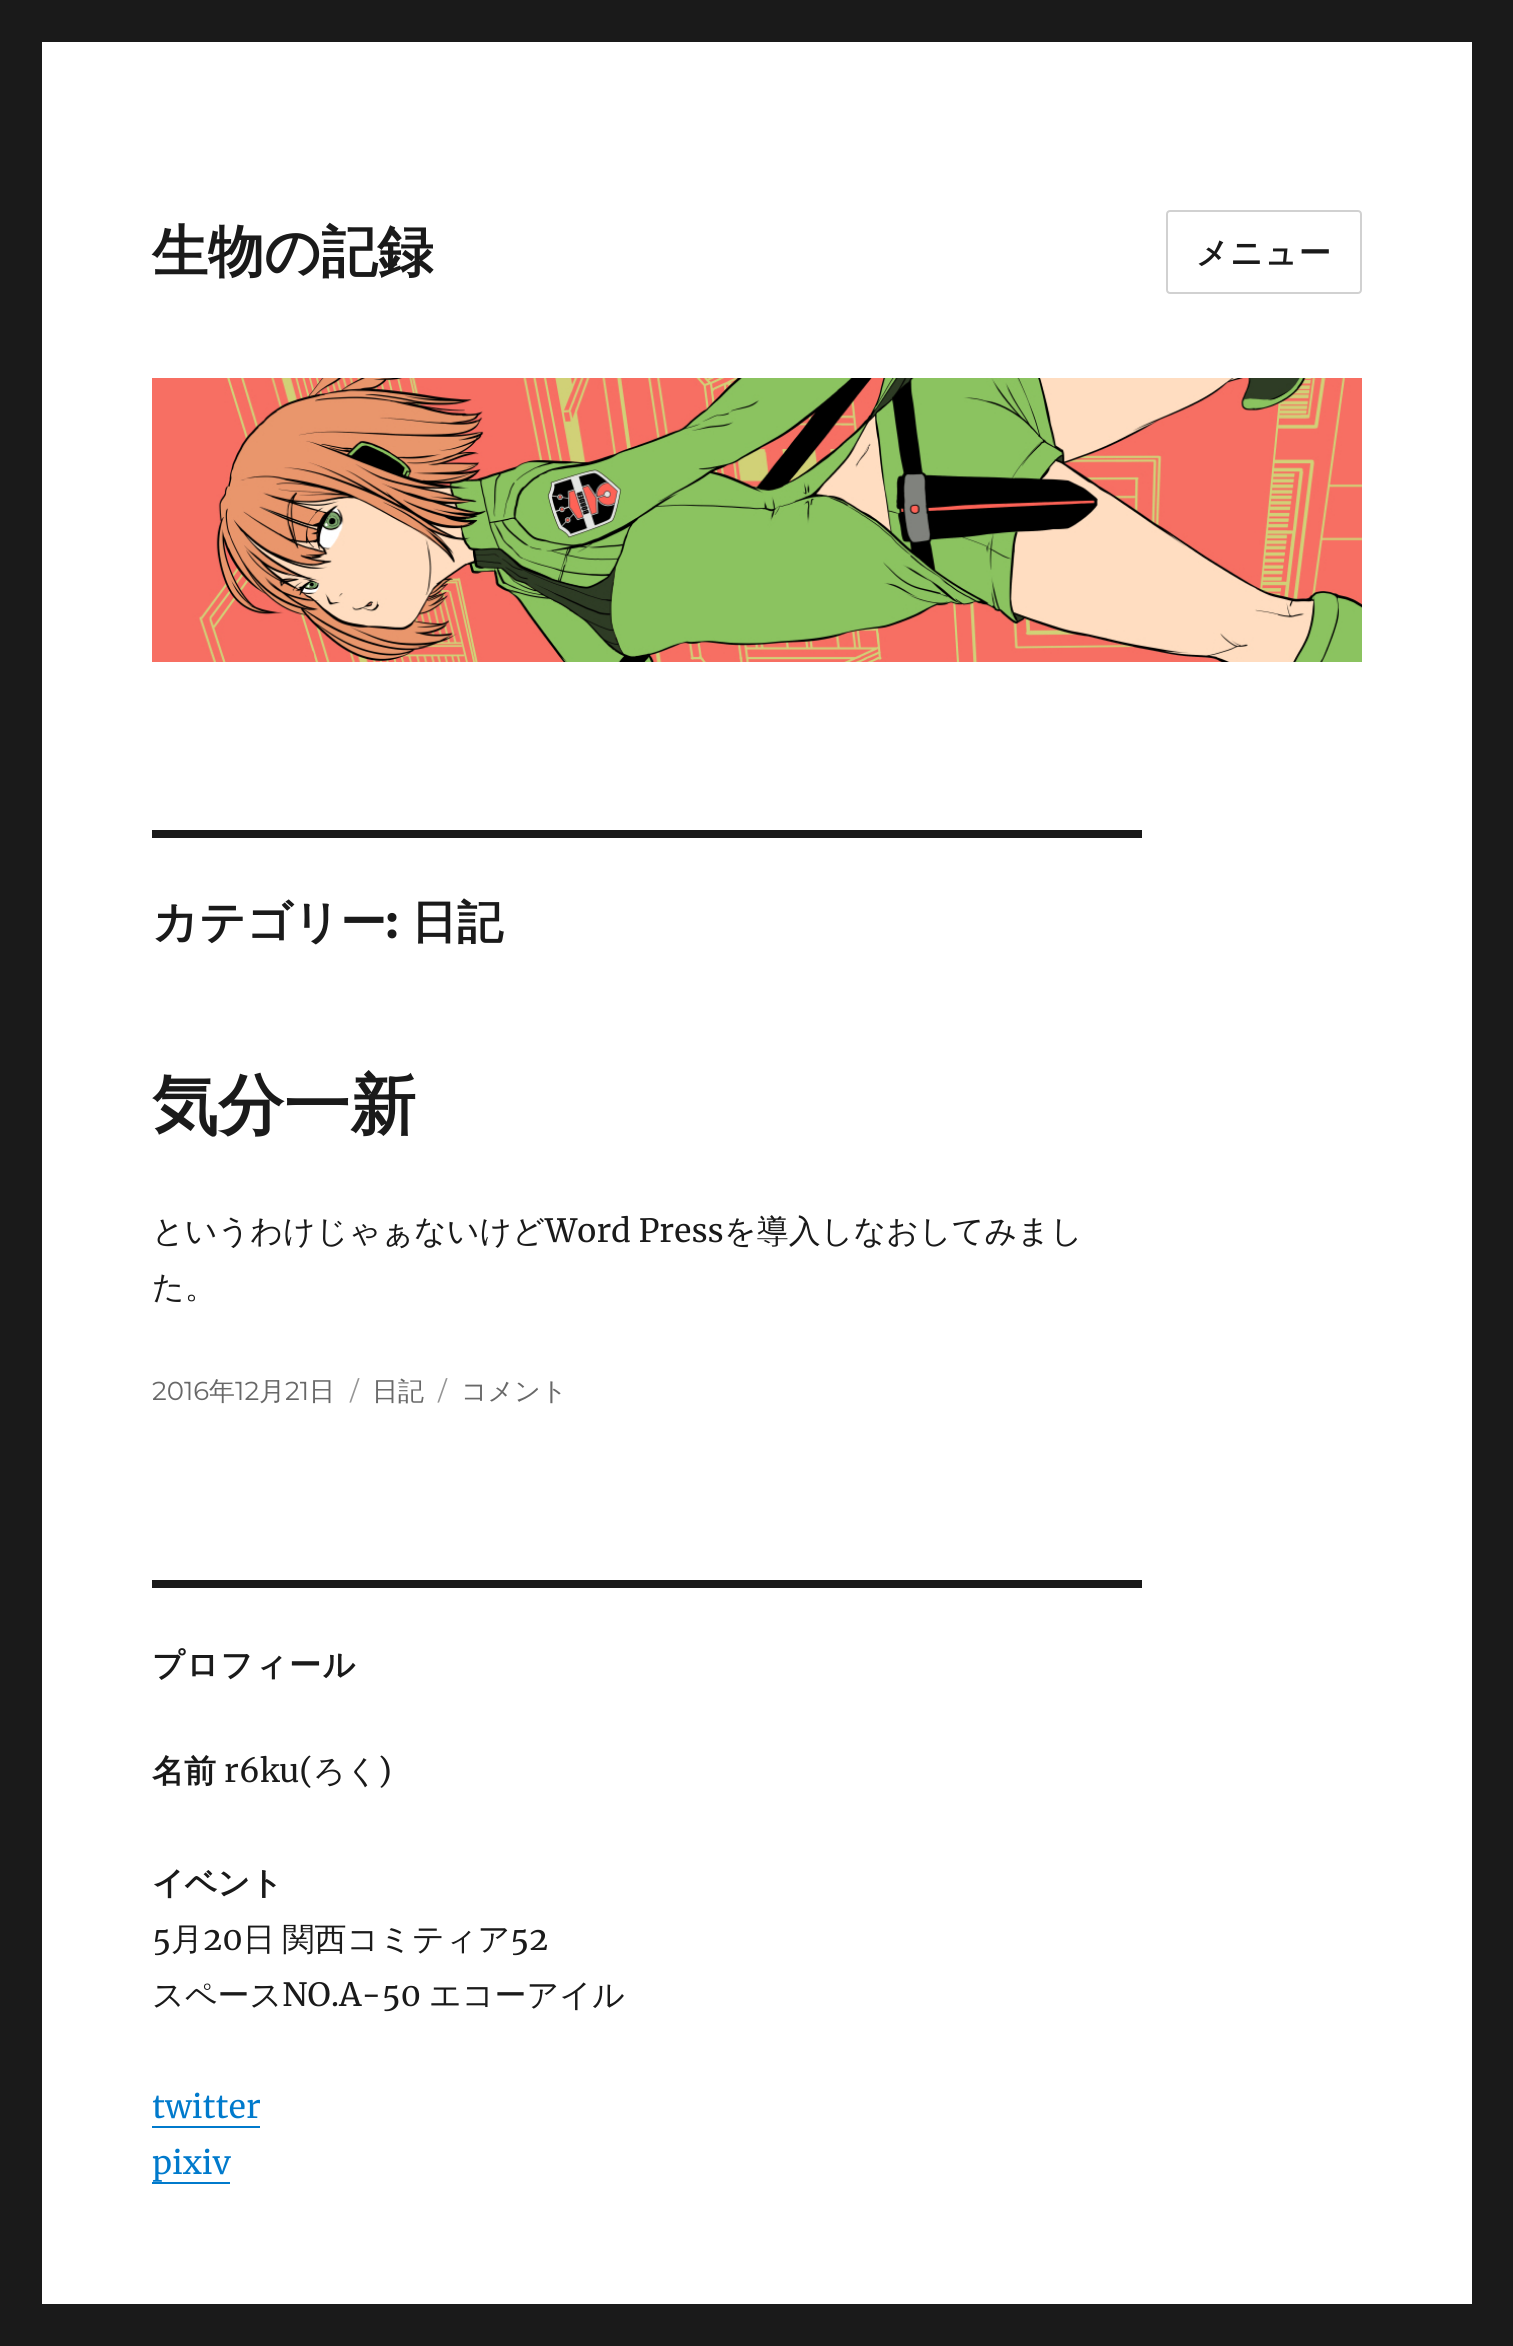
#include <cairo.h>
#include <math.h>
#include <stddef.h>


static void rgb(cairo_t *cr, int r, int g, int b)
{
	cairo_set_source_rgb(cr, r / 255.0, g / 255.0, b / 255.0);
}

static void face(cairo_t *cr, const char *family, double size, int italic, int bold)
{
	cairo_select_font_face(cr, family, italic ? CAIRO_FONT_SLANT_ITALIC : CAIRO_FONT_SLANT_NORMAL,
		bold ? CAIRO_FONT_WEIGHT_BOLD : CAIRO_FONT_WEIGHT_NORMAL);
	cairo_set_font_size(cr, size);
}

static void label(cairo_t *cr, double x, double y, const char *s)
{
	cairo_move_to(cr, x, y);
	cairo_show_text(cr, s);
}

static void tracked(cairo_t *cr, double x, double y, const char *s, double letter, double word)
{
	cairo_move_to(cr, x, y);
	while (*s) {
		char ch[5] = {0};
		int n = 0;
		do ch[n++] = *s++; while ((*s & 0xC0) == 0x80);
		cairo_show_text(cr, ch);
		cairo_rel_move_to(cr, letter + word * (*ch == ' '), 0);
	}
}

static void rect(cairo_t *cr, double x, double y, double w, double h)
{
	cairo_rectangle(cr, x, y, w, h);
	cairo_fill(cr);
}

static void rrect(cairo_t *cr, double x, double y, double w, double h, double r)
{
	cairo_new_sub_path(cr);
	cairo_arc(cr, x + w - r, y + h - r, r, 0, M_PI / 2);
	cairo_arc(cr, x + r, y + h - r, r, M_PI / 2, M_PI);
	cairo_arc(cr, x + r, y + r, r, M_PI, 1.5 * M_PI);
	cairo_arc(cr, x + w - r, y + r, r, 1.5 * M_PI, 2 * M_PI);
	cairo_close_path(cr);
}

static void image(cairo_t *cr, const char *path, double x, double y, double w, double h)
{
	cairo_surface_t *image = cairo_image_surface_create_from_png(path);
	cairo_save(cr);
	cairo_set_source_surface(cr, image, x, y);
	cairo_rectangle(cr, x, y, w, h);
	cairo_fill(cr);
	cairo_restore(cr);
	cairo_surface_destroy(image);
}

static void draw(cairo_t *cr) {
	rgb(cr, 26, 26, 26);
	cairo_paint(cr);
	rgb(cr, 255, 255, 255);
	rect(cr, 42, 42, 1430, 2262);
	face(cr, "WenQuanYi Zen Hei", 56, 0, 1);
	rgb(cr, 26, 26, 26);
	label(cr, 152, 271, "生物の記録");
	rrect(cr, 1167, 211, 194, 82, 3);
	rgb(cr, 209, 209, 209);
	cairo_stroke(cr);
	face(cr, "WenQuanYi Zen Hei", 32, 0, 1);
	rgb(cr, 26, 26, 26);
	tracked(cr, 1196, 264, "メニュー", 1.5, 0);
	image(cr, "image0.png", 152, 378, 1210, 284);
	rect(cr, 152, 830, 990, 8);
	face(cr, "WenQuanYi Zen Hei", 46, 0, 1);
	label(cr, 152, 938, "カテゴリー");
	face(cr, "Montserrat Thin", 46, 0, 0);
	label(cr, 386, 938, ":");
	face(cr, "WenQuanYi Zen Hei", 46, 0, 1);
	label(cr, 411, 938, "日記");
	face(cr, "WenQuanYi Zen Hei", 66, 0, 1);
	label(cr, 152, 1128, "気分一新");
	face(cr, "WenQuanYi Zen Hei Medium", 32, 0, 0);
	label(cr, 152, 1242, "というわけじゃぁないけど");
	face(cr, "Merriweather", 32, 0, 0);
	label(cr, 545, 1242, "Word Press");
	face(cr, "WenQuanYi Zen Hei Medium", 32, 0, 0);
	label(cr, 724, 1242, "を導入しなおしてみまし");
	label(cr, 152, 1298, "た。");
	face(cr, "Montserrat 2 Thin", 26, 0, 0);
	rgb(cr, 104, 104, 104);
	label(cr, 152, 1400, "2016");
	face(cr, "WenQuanYi Zen Hei Medium", 26, 0, 0);
	label(cr, 209, 1400, "年");
	face(cr, "Montserrat 2 Thin", 26, 0, 0);
	label(cr, 235, 1400, "12");
	face(cr, "WenQuanYi Zen Hei Medium", 26, 0, 0);
	label(cr, 259, 1400, "月");
	face(cr, "Montserrat 2 Thin", 26, 0, 0);
	label(cr, 285, 1400, "21");
	face(cr, "WenQuanYi Zen Hei Medium", 26, 0, 0);
	label(cr, 309, 1400, "日");
	face(cr, "Montserrat 2 Thin", 26, 0, 0);
	rgb(cr, 149, 149, 149);
	label(cr, 350, 1400, "/");
	face(cr, "WenQuanYi Zen Hei Medium", 26, 0, 0);
	rgb(cr, 104, 104, 104);
	label(cr, 372, 1400, "日記");
	face(cr, "Montserrat 2 Thin", 26, 0, 0);
	rgb(cr, 149, 149, 149);
	label(cr, 438, 1400, "/");
	face(cr, "WenQuanYi Zen Hei Medium", 26, 0, 0);
	rgb(cr, 104, 104, 104);
	label(cr, 461, 1400, "コメント");
	rgb(cr, 26, 26, 26);
	rect(cr, 152, 1580, 990, 8);
	face(cr, "WenQuanYi Zen Hei", 32, 0, 1);
	tracked(cr, 152, 1676, "プロフィール", 1.5, 0);
	label(cr, 152, 1782, "名前");
	face(cr, "Merriweather", 32, 0, 0);
	label(cr, 224, 1782, "r6ku(");
	face(cr, "WenQuanYi Zen Hei Medium", 32, 0, 0);
	label(cr, 313, 1782, "ろく");
	face(cr, "Merriweather", 32, 0, 0);
	label(cr, 378, 1782, ")");
	face(cr, "WenQuanYi Zen Hei", 32, 0, 1);
	label(cr, 152, 1894, "イベント");
	face(cr, "Merriweather", 32, 0, 0);
	label(cr, 152, 1950, "5");
	face(cr, "WenQuanYi Zen Hei Medium", 32, 0, 0);
	label(cr, 171, 1950, "月");
	face(cr, "Merriweather", 32, 0, 0);
	label(cr, 203, 1950, "20");
	face(cr, "WenQuanYi Zen Hei Medium", 32, 0, 0);
	tracked(cr, 243, 1950, "日 関西コミティア", 0, -2);
	face(cr, "Merriweather", 32, 0, 0);
	label(cr, 510, 1950, "52");
	face(cr, "WenQuanYi Zen Hei Medium", 32, 0, 0);
	label(cr, 152, 2006, "スペース");
	face(cr, "Merriweather", 32, 0, 0);
	label(cr, 282, 2006, "NO.A-50");
	face(cr, "WenQuanYi Zen Hei Medium", 32, 0, 0);
	label(cr, 429, 2006, "エコーアイル");
	face(cr, "Merriweather", 32, 0, 0);
	rgb(cr, 0, 122, 204);
	label(cr, 152, 2118, "twitter");
	rect(cr, 152, 2126, 108, 2);
	label(cr, 152, 2174, "pixiv");
	rect(cr, 152, 2182, 78, 2);
}

int main(void) {
	cairo_surface_t *surface = cairo_image_surface_create(CAIRO_FORMAT_RGB24, 1513, 2346);
	cairo_t *cr = cairo_create(surface);
	cairo_font_options_t *options = cairo_font_options_create();
	cairo_font_options_set_hint_metrics(options, CAIRO_HINT_METRICS_OFF);
	cairo_font_options_set_hint_style(options, CAIRO_HINT_STYLE_NONE);
	cairo_set_font_options(cr, options);
	cairo_set_miter_limit(cr, 4);
	draw(cr);
	cairo_surface_write_to_png(surface, "render.png");
	cairo_font_options_destroy(options);
	cairo_destroy(cr);
	cairo_surface_destroy(surface);
	return 0;
}
